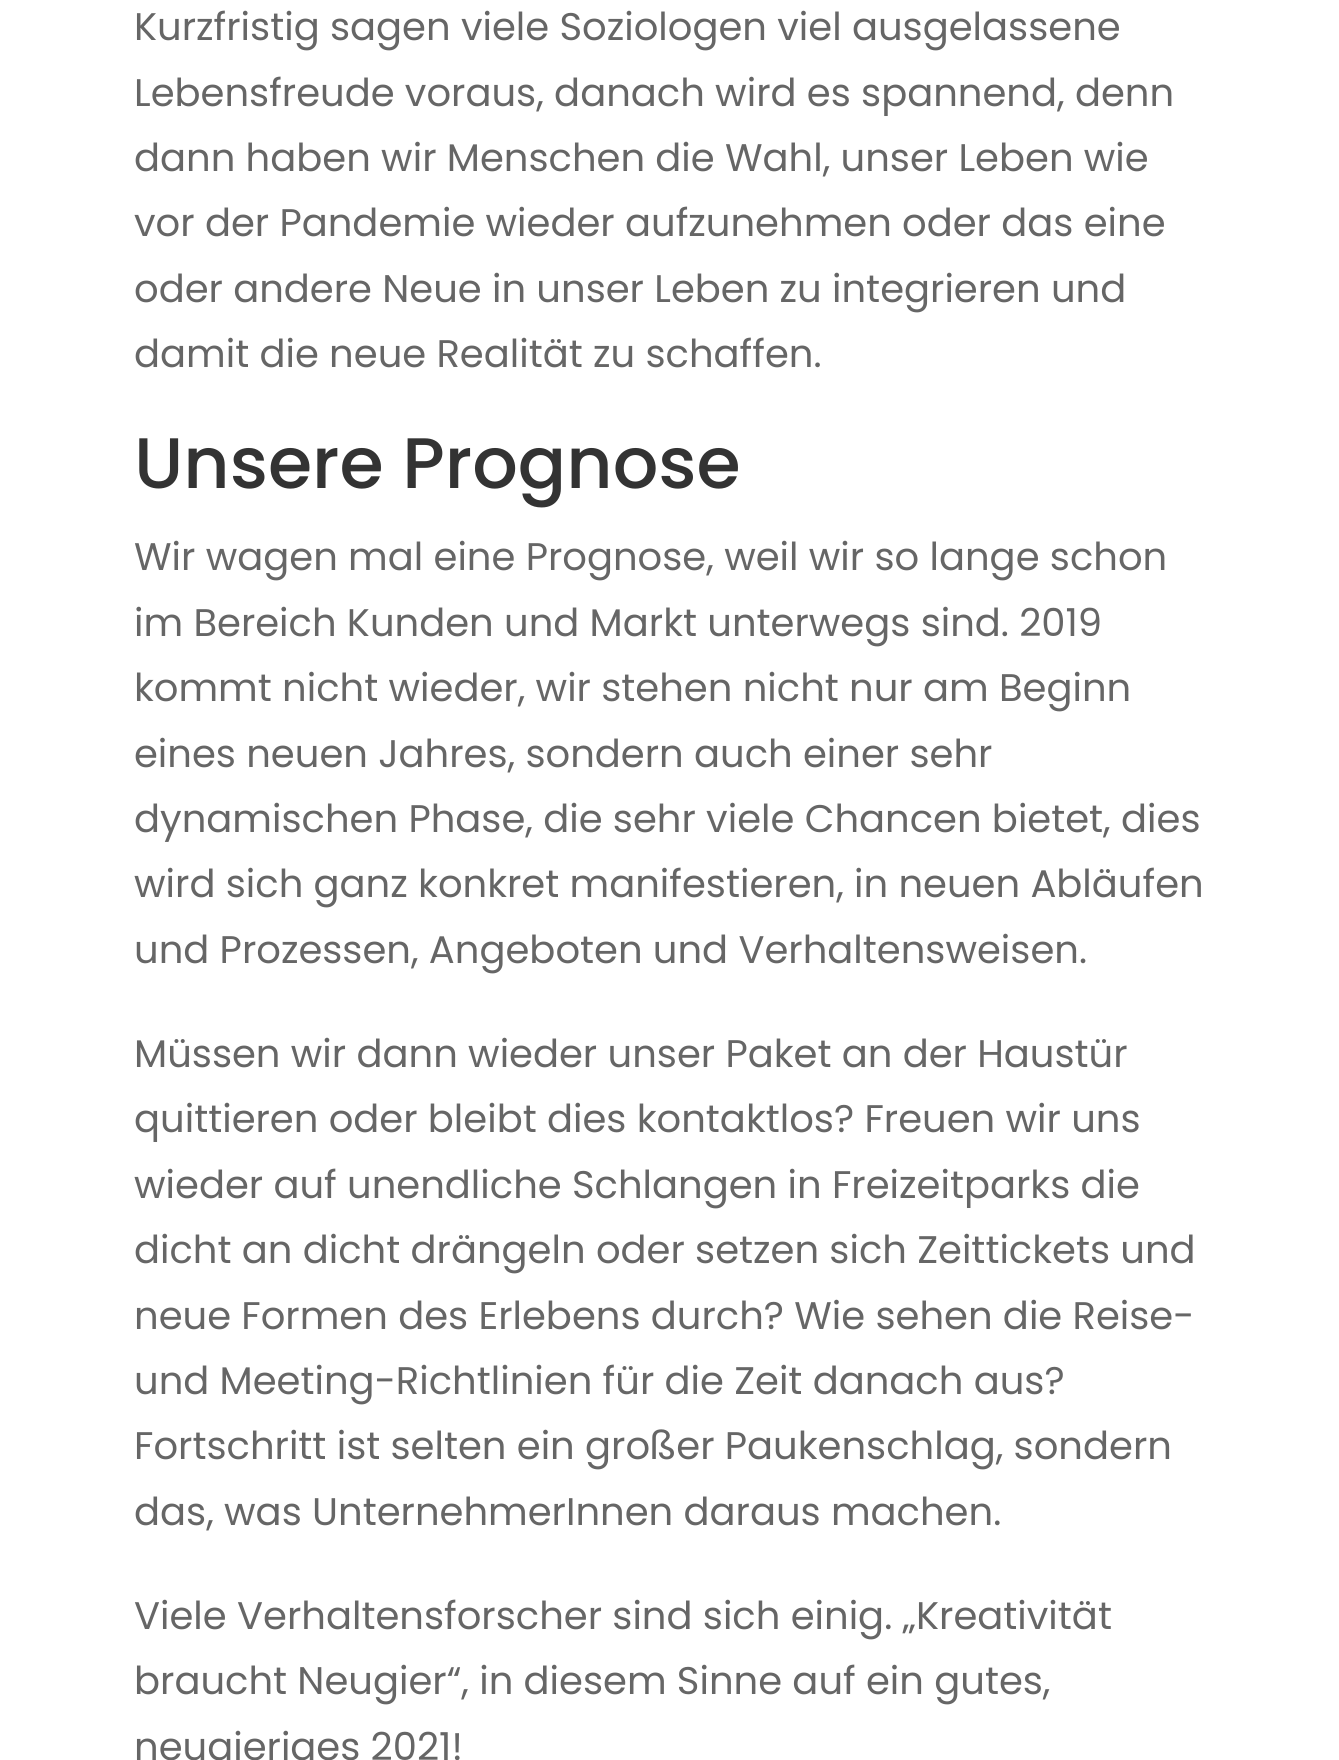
#include <cairo.h>
#include <math.h>
#include <stddef.h>


static void rgb(cairo_t *cr, int r, int g, int b)
{
	cairo_set_source_rgb(cr, r / 255.0, g / 255.0, b / 255.0);
}

static void face(cairo_t *cr, const char *family, double size, int italic, int bold)
{
	cairo_select_font_face(cr, family, italic ? CAIRO_FONT_SLANT_ITALIC : CAIRO_FONT_SLANT_NORMAL,
		bold ? CAIRO_FONT_WEIGHT_BOLD : CAIRO_FONT_WEIGHT_NORMAL);
	cairo_set_font_size(cr, size);
}

static void label(cairo_t *cr, double x, double y, const char *s)
{
	cairo_move_to(cr, x, y);
	cairo_show_text(cr, s);
}

static void draw(cairo_t *cr) {
	rgb(cr, 255, 255, 255);
	cairo_paint(cr);
	face(cr, "Poppins", 38.5, 0, 0);
	rgb(cr, 102, 102, 102);
	label(cr, 134, 40, "Kurzfristig sagen viele Soziologen viel ausgelassene");
	label(cr, 134, 106, "Lebensfreude voraus, danach wird es spannend, denn");
	label(cr, 134, 171, "dann haben wir Menschen die Wahl, unser Leben wie");
	label(cr, 134, 236, "vor der Pandemie wieder aufzunehmen oder das eine");
	label(cr, 134, 302, "oder andere Neue in unser Leben zu integrieren und");
	label(cr, 134, 367, "damit die neue Realität zu schaffen.");
	face(cr, "Poppins Medium", 71.5, 0, 0);
	rgb(cr, 51, 51, 51);
	label(cr, 134, 488, "Unsere Prognose");
	face(cr, "Poppins", 38.5, 0, 0);
	rgb(cr, 102, 102, 102);
	label(cr, 134, 570, "Wir wagen mal eine Prognose, weil wir so lange schon");
	label(cr, 134, 636, "im Bereich Kunden und Markt unterwegs sind. 2019");
	label(cr, 134, 701, "kommt nicht wieder, wir stehen nicht nur am Beginn");
	label(cr, 134, 767, "eines neuen Jahres, sondern auch einer sehr");
	label(cr, 134, 832, "dynamischen Phase, die sehr viele Chancen bietet, dies");
	label(cr, 134, 897, "wird sich ganz konkret manifestieren, in neuen Abläufen");
	label(cr, 134, 963, "und Prozessen, Angeboten und Verhaltensweisen.");
	label(cr, 134, 1067, "Müssen wir dann wieder unser Paket an der Haustür");
	label(cr, 134, 1132, "quittieren oder bleibt dies kontaktlos? Freuen wir uns");
	label(cr, 134, 1198, "wieder auf unendliche Schlangen in Freizeitparks die");
	label(cr, 134, 1263, "dicht an dicht drängeln oder setzen sich Zeittickets und");
	label(cr, 134, 1329, "neue Formen des Erlebens durch? Wie sehen die Reise-");
	label(cr, 134, 1394, "und Meeting-Richtlinien für die Zeit danach aus?");
	label(cr, 134, 1459, "Fortschritt ist selten ein großer Paukenschlag, sondern");
	label(cr, 134, 1525, "das, was UnternehmerInnen daraus machen.");
	label(cr, 134, 1629, "Viele Verhaltensforscher sind sich einig. „Kreativität");
	label(cr, 134, 1694, "braucht Neugier“, in diesem Sinne auf ein gutes,");
	label(cr, 134, 1760, "neugieriges 2021!");
}

int main(void) {
	cairo_surface_t *surface = cairo_image_surface_create(CAIRO_FORMAT_RGB24, 1339, 1760);
	cairo_t *cr = cairo_create(surface);
	cairo_font_options_t *options = cairo_font_options_create();
	cairo_font_options_set_hint_metrics(options, CAIRO_HINT_METRICS_OFF);
	cairo_font_options_set_hint_style(options, CAIRO_HINT_STYLE_NONE);
	cairo_set_font_options(cr, options);
	cairo_set_miter_limit(cr, 4);
	draw(cr);
	cairo_surface_write_to_png(surface, "render.png");
	cairo_font_options_destroy(options);
	cairo_destroy(cr);
	cairo_surface_destroy(surface);
	return 0;
}
